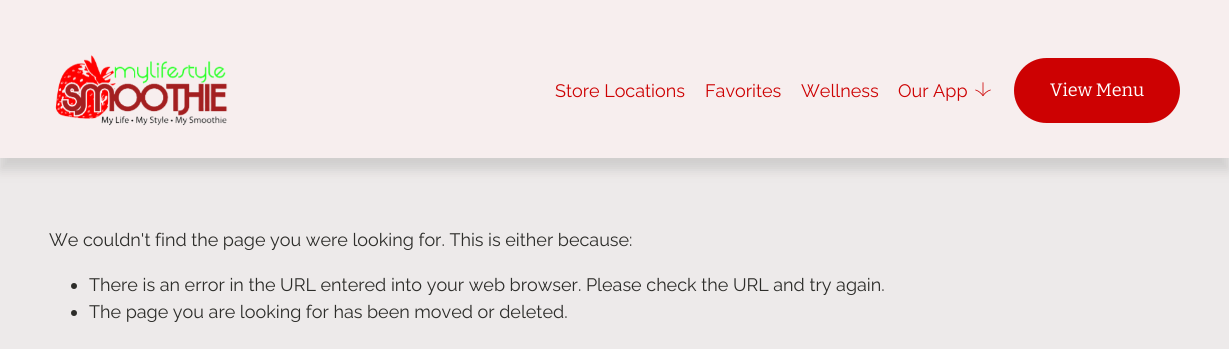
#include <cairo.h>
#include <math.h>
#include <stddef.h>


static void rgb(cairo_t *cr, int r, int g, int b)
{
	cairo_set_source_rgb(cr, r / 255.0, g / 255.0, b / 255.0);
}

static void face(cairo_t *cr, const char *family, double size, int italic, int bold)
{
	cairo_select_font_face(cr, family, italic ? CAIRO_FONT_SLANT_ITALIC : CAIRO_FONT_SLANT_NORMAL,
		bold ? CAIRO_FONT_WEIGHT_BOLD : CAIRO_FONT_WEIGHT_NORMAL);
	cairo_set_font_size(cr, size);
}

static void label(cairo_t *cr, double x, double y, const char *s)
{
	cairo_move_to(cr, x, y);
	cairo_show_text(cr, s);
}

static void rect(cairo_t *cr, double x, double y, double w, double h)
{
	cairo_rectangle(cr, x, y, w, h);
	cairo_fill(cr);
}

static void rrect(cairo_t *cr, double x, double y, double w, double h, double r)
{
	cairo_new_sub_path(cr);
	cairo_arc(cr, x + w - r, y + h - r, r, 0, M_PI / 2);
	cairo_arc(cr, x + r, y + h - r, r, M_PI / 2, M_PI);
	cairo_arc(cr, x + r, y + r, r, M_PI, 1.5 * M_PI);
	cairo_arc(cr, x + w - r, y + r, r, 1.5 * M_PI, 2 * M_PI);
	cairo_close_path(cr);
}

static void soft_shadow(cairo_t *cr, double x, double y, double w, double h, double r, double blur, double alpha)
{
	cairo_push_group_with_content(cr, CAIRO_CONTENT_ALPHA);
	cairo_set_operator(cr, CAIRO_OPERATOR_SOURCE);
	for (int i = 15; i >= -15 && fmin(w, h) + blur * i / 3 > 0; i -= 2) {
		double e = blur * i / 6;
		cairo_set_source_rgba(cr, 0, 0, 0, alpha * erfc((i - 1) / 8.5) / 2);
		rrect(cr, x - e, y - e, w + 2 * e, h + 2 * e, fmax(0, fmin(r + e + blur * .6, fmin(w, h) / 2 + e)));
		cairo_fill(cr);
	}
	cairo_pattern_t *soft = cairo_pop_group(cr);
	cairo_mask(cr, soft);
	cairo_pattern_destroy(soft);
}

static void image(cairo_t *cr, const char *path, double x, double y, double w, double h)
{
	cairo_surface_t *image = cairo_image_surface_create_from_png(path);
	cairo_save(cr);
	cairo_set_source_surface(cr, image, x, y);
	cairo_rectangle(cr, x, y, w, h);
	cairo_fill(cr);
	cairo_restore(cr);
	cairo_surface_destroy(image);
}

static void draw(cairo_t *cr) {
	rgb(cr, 237, 234, 234);
	cairo_paint(cr);
	rgb(cr, 208, 206, 205);
	soft_shadow(cr, 0, 12, 1229, 158, 0, 6, 1);
	rgb(cr, 247, 238, 238);
	rect(cr, 0, 0, 1229, 158);
	image(cr, "image0.png", 55, 55, 173, 71);
	face(cr, "Raleway", 18, 0, 0);
	rgb(cr, 205, 1, 2);
	label(cr, 555, 97, "Store Locations");
	label(cr, 705, 97, "Favorites");
	label(cr, 801, 97, "Wellness");
	label(cr, 898, 97, "Our App");
	image(cr, "image1.png", 975, 82, 16, 15);
	rrect(cr, 1014, 58, 166, 65, 32.5);
	cairo_fill(cr);
	face(cr, "Bitter", 18, 0, 0);
	rgb(cr, 255, 255, 255);
	label(cr, 1050, 96, "View Menu");
	face(cr, "Raleway", 18, 0, 0);
	rgb(cr, 45, 45, 42);
	label(cr, 49, 246, "We couldn't find the page you were looking for. This is either because:");
	cairo_new_path(cr);
	cairo_arc(cr, 74, 286, 3, 0, 2 * M_PI);
	cairo_fill(cr);
	label(cr, 89, 291, "There is an error in the URL entered into your web browser. Please check the URL and try again.");
	cairo_new_path(cr);
	cairo_arc(cr, 74, 313, 3, 0, 2 * M_PI);
	cairo_fill(cr);
	label(cr, 89, 318, "The page you are looking for has been moved or deleted.");
}

int main(void) {
	cairo_surface_t *surface = cairo_image_surface_create(CAIRO_FORMAT_RGB24, 1229, 349);
	cairo_t *cr = cairo_create(surface);
	cairo_font_options_t *options = cairo_font_options_create();
	cairo_font_options_set_hint_metrics(options, CAIRO_HINT_METRICS_OFF);
	cairo_font_options_set_hint_style(options, CAIRO_HINT_STYLE_NONE);
	cairo_set_font_options(cr, options);
	cairo_set_miter_limit(cr, 4);
	draw(cr);
	cairo_surface_write_to_png(surface, "render.png");
	cairo_font_options_destroy(options);
	cairo_destroy(cr);
	cairo_surface_destroy(surface);
	return 0;
}
